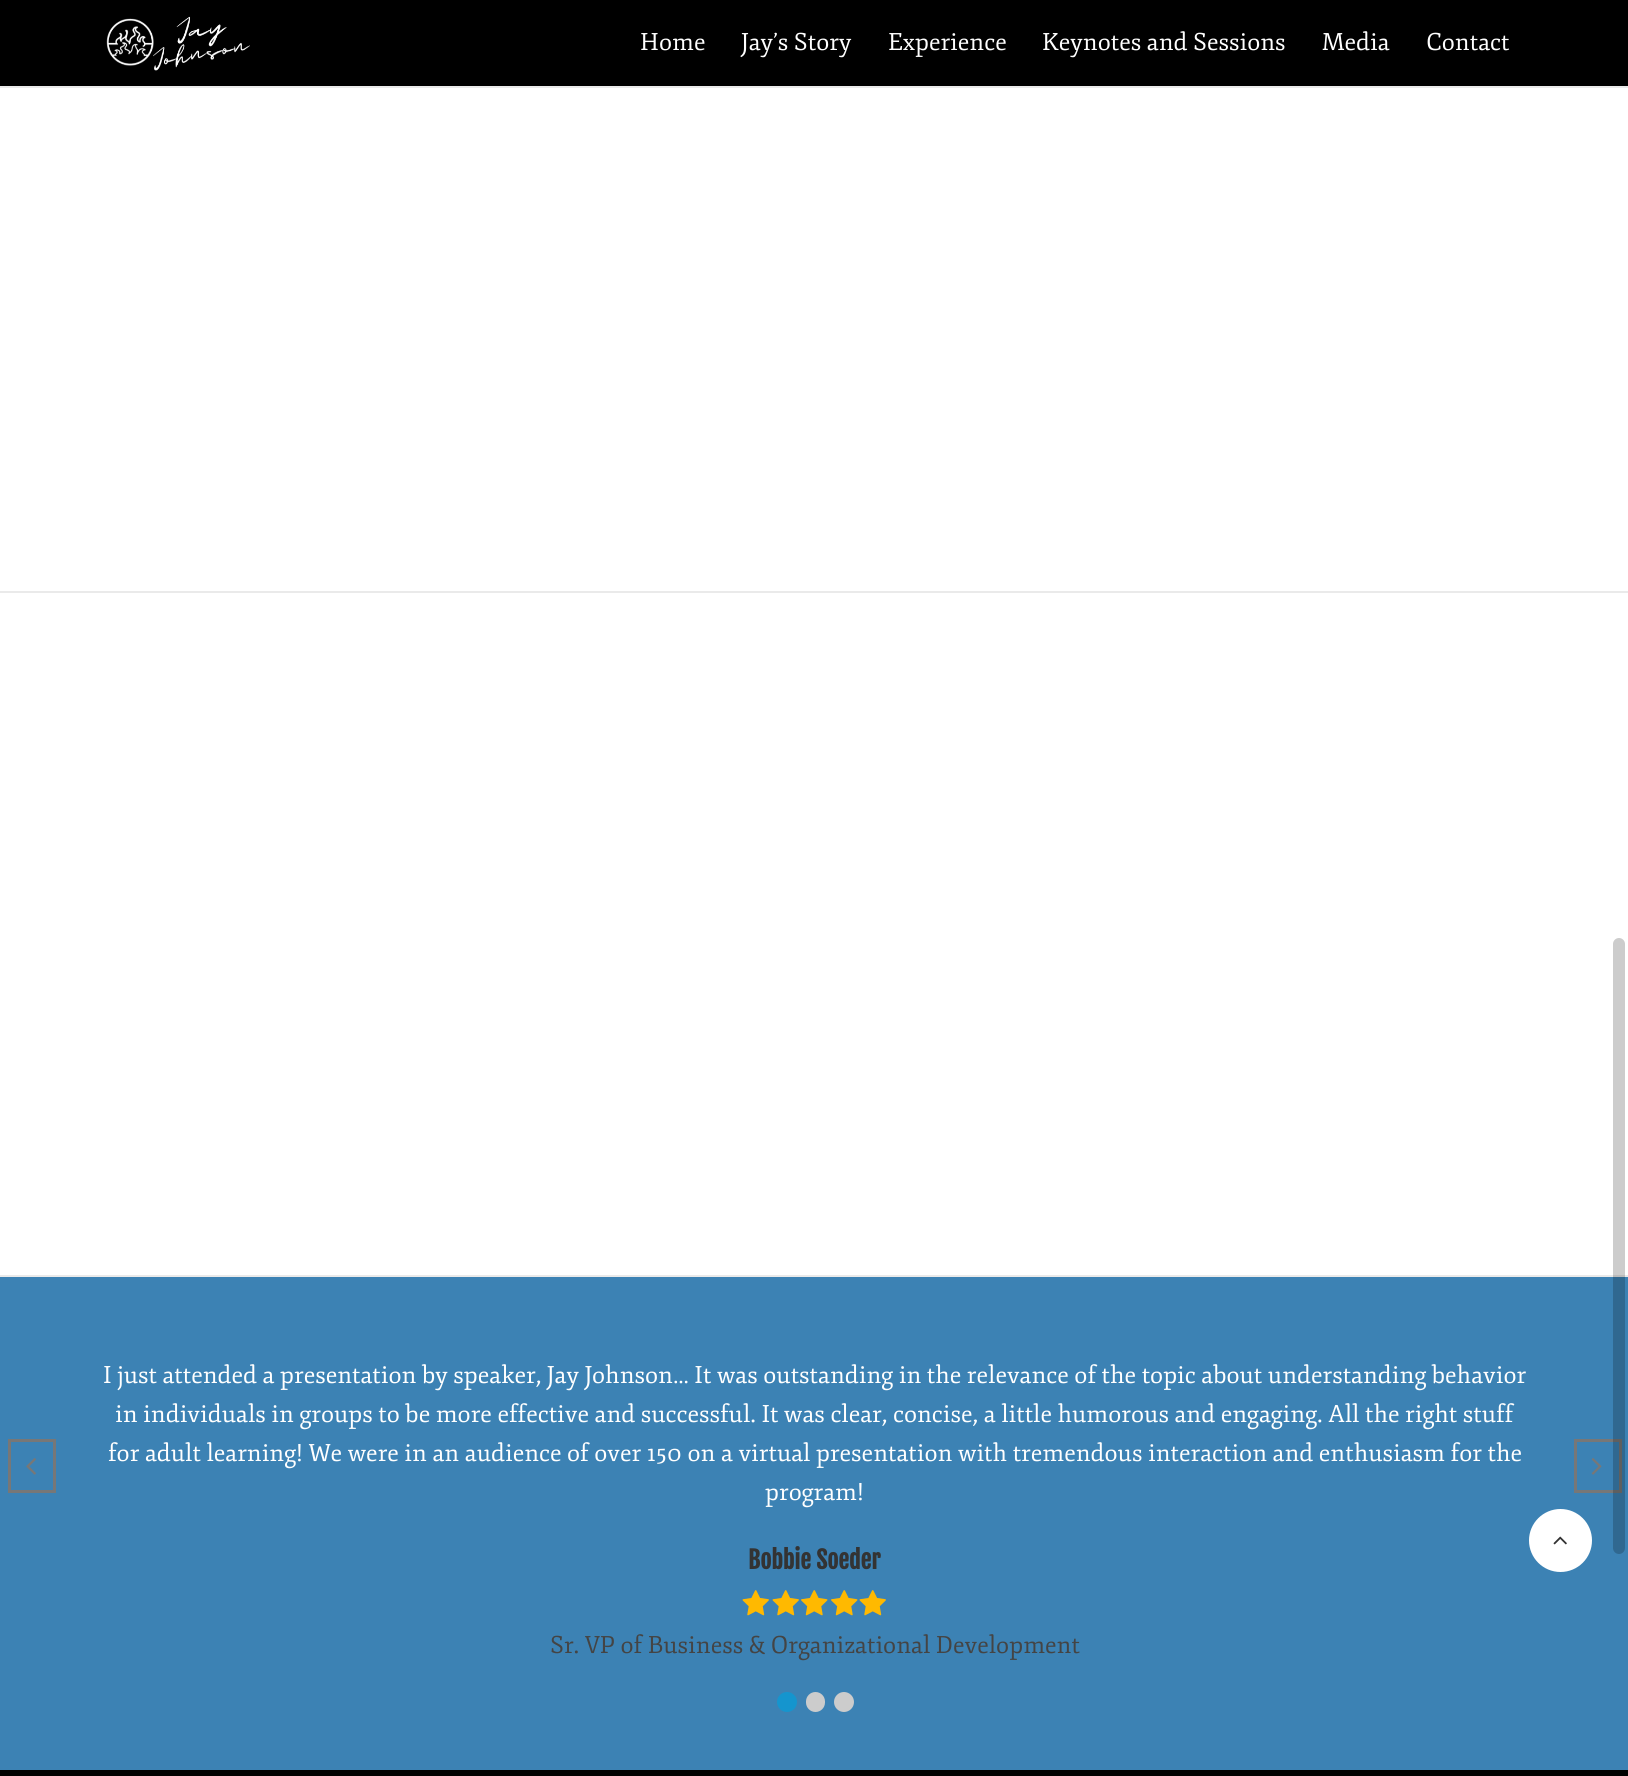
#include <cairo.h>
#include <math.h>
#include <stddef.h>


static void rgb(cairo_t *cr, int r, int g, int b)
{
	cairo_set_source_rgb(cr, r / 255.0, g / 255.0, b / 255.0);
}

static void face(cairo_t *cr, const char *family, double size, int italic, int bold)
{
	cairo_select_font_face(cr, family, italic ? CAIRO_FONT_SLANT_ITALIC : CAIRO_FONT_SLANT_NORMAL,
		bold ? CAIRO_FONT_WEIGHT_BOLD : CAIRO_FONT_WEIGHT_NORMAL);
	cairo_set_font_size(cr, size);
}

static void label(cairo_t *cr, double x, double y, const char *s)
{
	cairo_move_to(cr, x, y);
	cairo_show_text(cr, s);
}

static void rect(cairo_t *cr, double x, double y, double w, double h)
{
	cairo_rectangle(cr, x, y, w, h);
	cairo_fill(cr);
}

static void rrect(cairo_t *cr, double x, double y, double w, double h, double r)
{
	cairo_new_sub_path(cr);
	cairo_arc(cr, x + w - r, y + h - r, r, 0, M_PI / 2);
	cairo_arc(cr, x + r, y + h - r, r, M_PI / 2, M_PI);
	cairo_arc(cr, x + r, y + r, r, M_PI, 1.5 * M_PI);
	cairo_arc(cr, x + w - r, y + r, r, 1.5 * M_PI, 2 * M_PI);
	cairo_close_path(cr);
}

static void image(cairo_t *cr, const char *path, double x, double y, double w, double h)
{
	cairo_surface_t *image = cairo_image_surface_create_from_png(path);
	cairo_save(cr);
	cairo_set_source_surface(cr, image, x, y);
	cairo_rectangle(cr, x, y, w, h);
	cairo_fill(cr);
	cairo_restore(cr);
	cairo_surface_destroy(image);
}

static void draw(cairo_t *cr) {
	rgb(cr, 0, 0, 0);
	cairo_paint(cr);
	rgb(cr, 234, 234, 234);
	rect(cr, 0, 86, 1628, 2);
	image(cr, "image0.png", 106, 16, 144, 55);
	face(cr, "Fjord", 24, 0, 0);
	rgb(cr, 255, 255, 255);
	label(cr, 640, 50, "Home");
	label(cr, 741, 50, "Jay’s Story");
	label(cr, 888, 50, "Experience");
	label(cr, 1042, 50, "Keynotes and Sessions");
	label(cr, 1322, 50, "Media");
	label(cr, 1426, 50, "Contact");
	rect(cr, 0, 88, 1628, 503);
	rgb(cr, 234, 234, 234);
	rect(cr, 0, 591, 1628, 2);
	rgb(cr, 255, 255, 255);
	rect(cr, 0, 593, 1628, 682);
	rgb(cr, 234, 234, 234);
	rect(cr, 0, 1275, 1628, 2);
	rgb(cr, 60, 130, 180);
	rect(cr, 0, 1277, 1628, 493);
	cairo_rectangle(cr, 9.5, 1440.5, 45, 51);
	rgb(cr, 119, 119, 119);
	cairo_set_line_width(cr, 3);
	cairo_stroke(cr);
	image(cr, "image1.png", 26, 1458, 10, 17);
	rgb(cr, 255, 255, 255);
	label(cr, 103, 1383, "I just attended a presentation by speaker, Jay Johnson… It was outstanding in the relevance of the topic about understanding behavior");
	label(cr, 115, 1422, "in individuals in groups to be more effective and successful. It was clear, concise, a little humorous and engaging. All the right stuff");
	label(cr, 108, 1461, "for adult learning! We were in an audience of over 150 on a virtual presentation with tremendous interaction and enthusiasm for the");
	label(cr, 765, 1500, "program!");
	face(cr, "Fjalla One", 24, 0, 1);
	rgb(cr, 51, 51, 51);
	label(cr, 748, 1569, "Bobbie Soeder");
	image(cr, "image2.png", 742, 1590, 27, 26);
	image(cr, "image2.png", 772, 1590, 27, 26);
	image(cr, "image3.png", 801, 1590, 27, 26);
	image(cr, "image3.png", 831, 1590, 27, 26);
	image(cr, "image2.png", 859, 1590, 27, 26);
	face(cr, "Fjord", 24, 0, 0);
	rgb(cr, 68, 68, 68);
	label(cr, 550, 1653, "Sr. VP of Business & Organizational Development");
	cairo_rectangle(cr, 1575.5, 1440.5, 45, 51);
	rgb(cr, 119, 119, 119);
	cairo_stroke(cr);
	image(cr, "image4.png", 1591, 1458, 11, 17);
	rgb(cr, 21, 149, 206);
	cairo_arc(cr, 787, 1702, 10, 0, 2 * M_PI);
	cairo_fill(cr);
	rgb(cr, 204, 204, 204);
	rrect(cr, 806, 1692, 19, 20, 9.5);
	cairo_fill(cr);
	cairo_arc(cr, 844, 1702, 10, 0, 2 * M_PI);
	cairo_fill(cr);
	rgb(cr, 255, 255, 255);
	cairo_arc(cr, 1560.5, 1540.5, 30.5, 0, 2 * M_PI);
	cairo_fill_preserve(cr);
	cairo_set_line_width(cr, 2);
	cairo_stroke(cr);
	image(cr, "image5.png", 1553, 1536, 14, 9);
	cairo_set_source_rgba(cr, 0, 0, 0, 0.2);
	rrect(cr, 1613, 938, 12, 616, 6);
	cairo_fill(cr);
}

int main(void) {
	cairo_surface_t *surface = cairo_image_surface_create(CAIRO_FORMAT_RGB24, 1628, 1776);
	cairo_t *cr = cairo_create(surface);
	cairo_font_options_t *options = cairo_font_options_create();
	cairo_font_options_set_hint_metrics(options, CAIRO_HINT_METRICS_OFF);
	cairo_font_options_set_hint_style(options, CAIRO_HINT_STYLE_NONE);
	cairo_set_font_options(cr, options);
	cairo_set_miter_limit(cr, 4);
	draw(cr);
	cairo_surface_write_to_png(surface, "render.png");
	cairo_font_options_destroy(options);
	cairo_destroy(cr);
	cairo_surface_destroy(surface);
	return 0;
}
